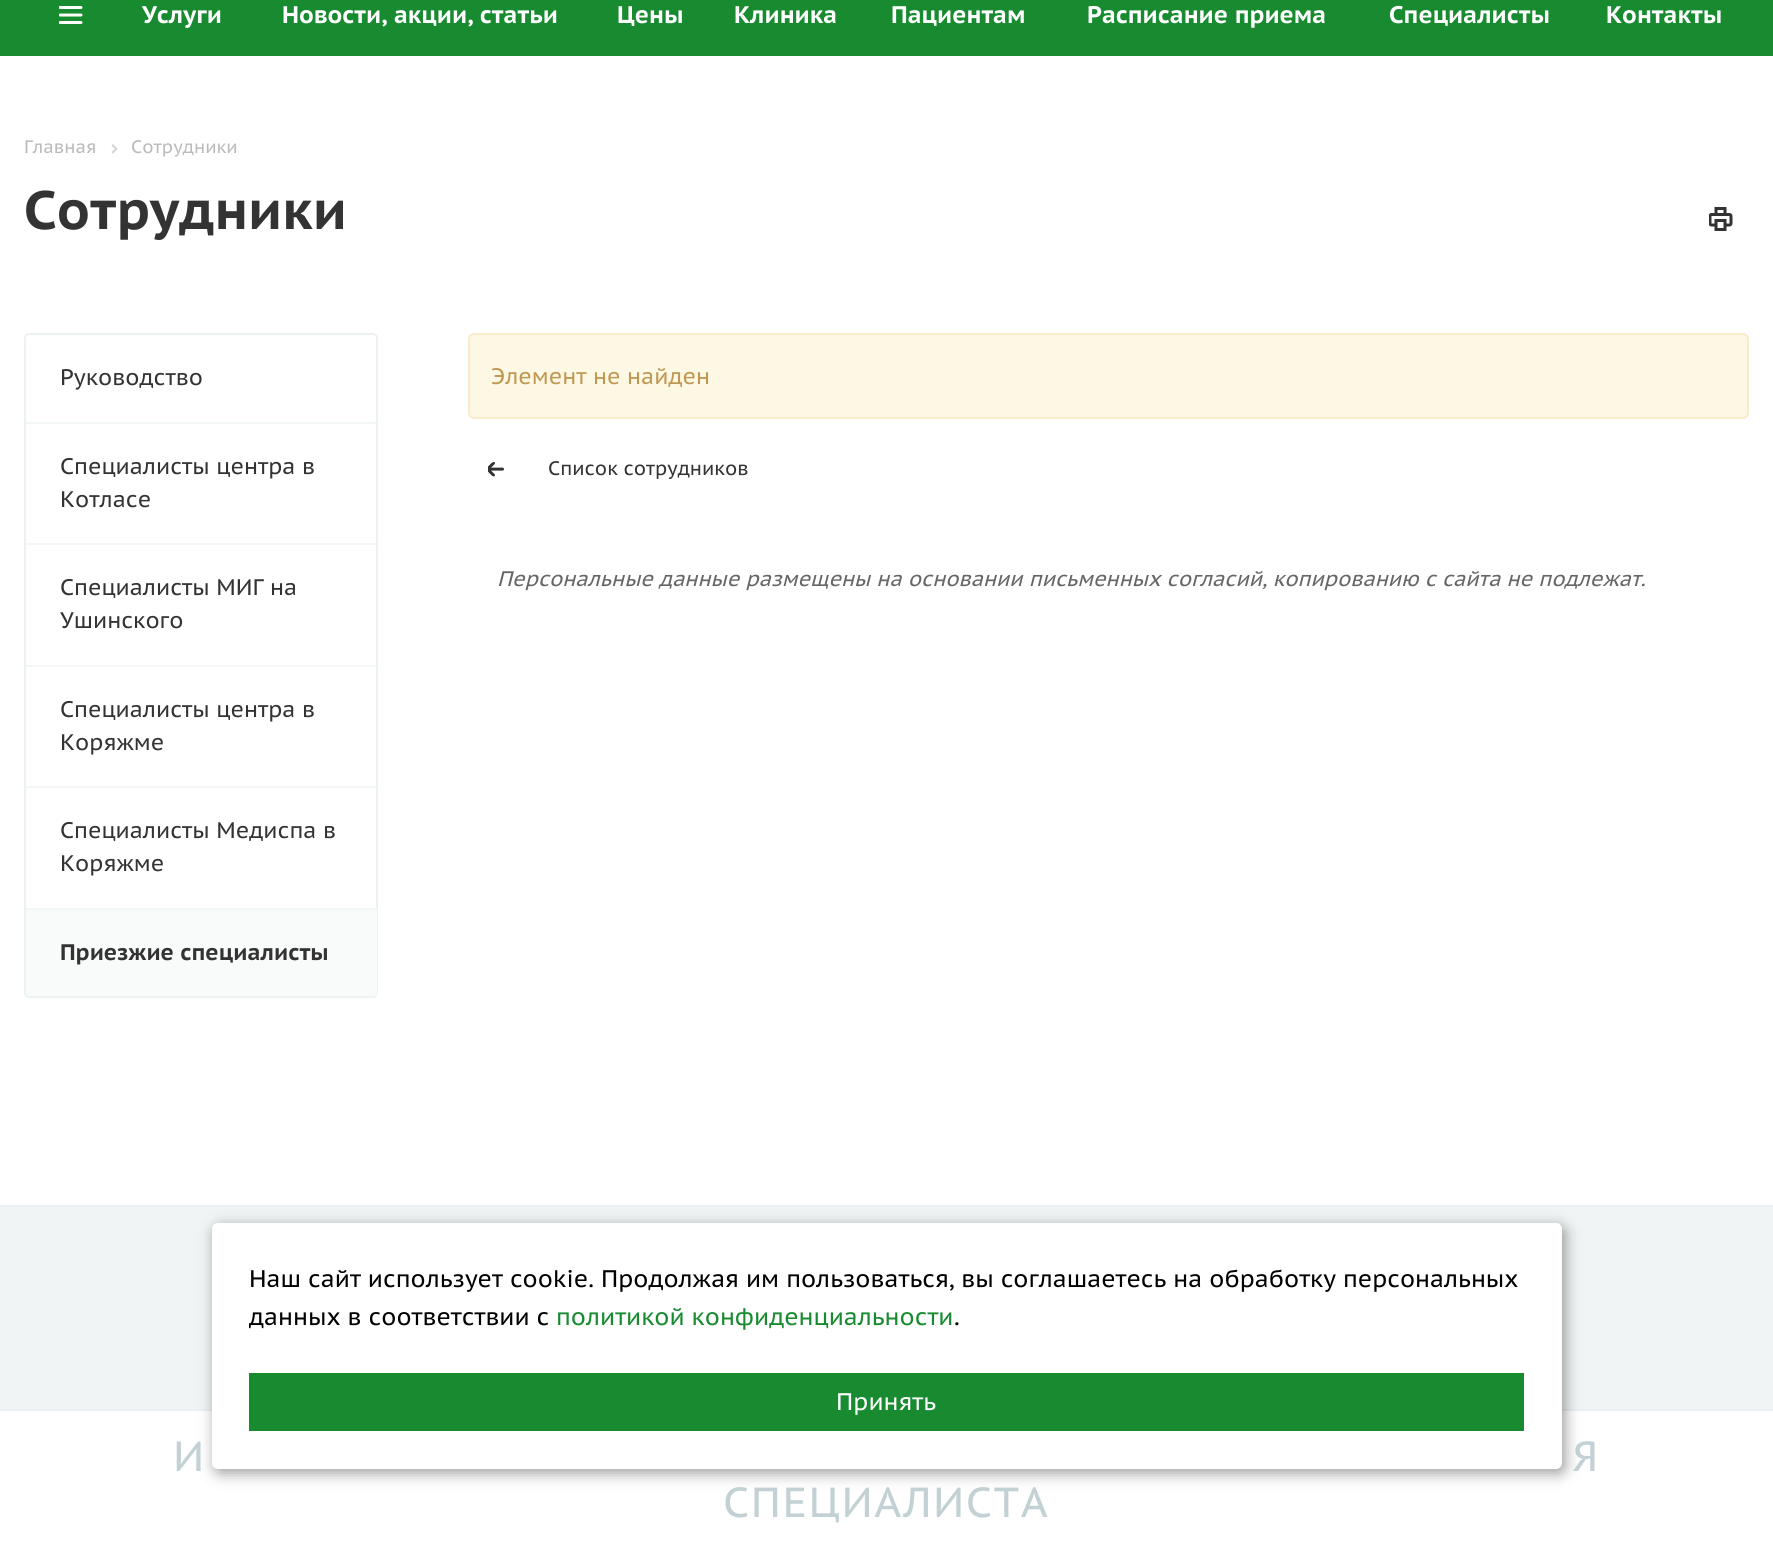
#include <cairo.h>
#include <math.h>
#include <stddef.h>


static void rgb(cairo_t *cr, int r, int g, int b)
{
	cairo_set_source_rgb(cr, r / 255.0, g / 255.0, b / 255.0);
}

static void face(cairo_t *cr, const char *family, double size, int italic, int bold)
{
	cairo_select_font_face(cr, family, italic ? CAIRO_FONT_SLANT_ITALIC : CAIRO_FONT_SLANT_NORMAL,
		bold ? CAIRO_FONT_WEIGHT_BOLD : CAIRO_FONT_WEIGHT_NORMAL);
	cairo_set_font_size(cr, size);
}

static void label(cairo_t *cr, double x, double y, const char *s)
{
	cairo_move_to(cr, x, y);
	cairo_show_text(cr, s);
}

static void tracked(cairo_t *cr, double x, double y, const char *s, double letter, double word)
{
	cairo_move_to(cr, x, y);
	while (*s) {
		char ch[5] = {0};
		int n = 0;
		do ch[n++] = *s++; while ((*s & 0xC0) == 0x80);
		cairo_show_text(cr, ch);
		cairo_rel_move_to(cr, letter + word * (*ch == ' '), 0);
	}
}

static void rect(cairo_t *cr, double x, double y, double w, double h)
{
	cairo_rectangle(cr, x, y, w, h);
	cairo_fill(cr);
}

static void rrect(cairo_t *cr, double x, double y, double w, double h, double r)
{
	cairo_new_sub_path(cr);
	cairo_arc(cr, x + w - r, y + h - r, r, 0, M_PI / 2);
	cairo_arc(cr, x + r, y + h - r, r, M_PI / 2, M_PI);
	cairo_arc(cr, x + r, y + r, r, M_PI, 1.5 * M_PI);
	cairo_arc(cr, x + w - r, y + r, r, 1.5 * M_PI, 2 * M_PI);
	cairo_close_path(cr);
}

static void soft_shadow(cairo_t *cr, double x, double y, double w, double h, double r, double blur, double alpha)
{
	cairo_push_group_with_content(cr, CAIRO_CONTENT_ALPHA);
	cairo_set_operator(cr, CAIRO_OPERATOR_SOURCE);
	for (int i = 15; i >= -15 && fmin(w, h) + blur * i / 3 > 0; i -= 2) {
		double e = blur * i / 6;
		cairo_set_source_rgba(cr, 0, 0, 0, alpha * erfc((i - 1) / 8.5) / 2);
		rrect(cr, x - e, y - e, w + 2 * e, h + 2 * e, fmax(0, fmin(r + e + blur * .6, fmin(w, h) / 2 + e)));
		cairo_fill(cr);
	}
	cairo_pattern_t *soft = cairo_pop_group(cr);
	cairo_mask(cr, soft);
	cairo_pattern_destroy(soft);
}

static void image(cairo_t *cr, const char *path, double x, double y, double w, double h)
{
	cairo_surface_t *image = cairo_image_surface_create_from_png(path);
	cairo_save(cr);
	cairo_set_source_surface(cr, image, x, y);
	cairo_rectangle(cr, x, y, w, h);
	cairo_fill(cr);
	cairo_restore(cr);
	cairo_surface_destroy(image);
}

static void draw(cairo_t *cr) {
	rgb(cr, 255, 255, 255);
	cairo_paint(cr);
	rgb(cr, 24, 139, 48);
	rect(cr, 0, 0, 1773, 56);
	image(cr, "image0.png", 59, 6, 24, 18);
	face(cr, "PT Sans Caption", 24, 0, 1);
	rgb(cr, 255, 255, 255);
	label(cr, 142, 23, "Услуги");
	label(cr, 282, 23, "Новости, акции, статьи");
	label(cr, 617, 23, "Цены");
	label(cr, 734, 23, "Клиника");
	label(cr, 891, 23, "Пациентам");
	label(cr, 1087, 23, "Расписание приема");
	label(cr, 1389, 23, "Специалисты");
	label(cr, 1606, 23, "Контакты");
	face(cr, "PT Sans Caption", 18, 0, 0);
	rgb(cr, 187, 187, 187);
	label(cr, 24, 153, "Главная");
	image(cr, "image1.png", 111, 144, 7, 10);
	label(cr, 131, 153, "Сотрудники");
	face(cr, "PT Sans Caption", 54, 0, 1);
	rgb(cr, 51, 51, 51);
	label(cr, 24, 229, "Сотрудники");
	image(cr, "image2.png", 1709, 207, 24, 24);
	rrect(cr, 25, 334, 352, 663, 4);
	rgb(cr, 236, 242, 244);
	cairo_stroke(cr);
	face(cr, "PT Sans Caption", 22.5, 0, 0);
	rgb(cr, 51, 51, 51);
	label(cr, 60, 385, "Руководство");
	rgb(cr, 242, 246, 247);
	rect(cr, 26, 422, 351, 2);
	rgb(cr, 51, 51, 51);
	label(cr, 60, 474, "Специалисты центра в");
	label(cr, 60, 507, "Котласе");
	rgb(cr, 242, 246, 247);
	rect(cr, 26, 543, 351, 2);
	rgb(cr, 51, 51, 51);
	label(cr, 60, 595, "Специалисты МИГ на");
	label(cr, 60, 628, "Ушинского");
	rgb(cr, 242, 246, 247);
	rect(cr, 26, 665, 351, 2);
	rgb(cr, 51, 51, 51);
	label(cr, 60, 717, "Специалисты центра в");
	label(cr, 60, 750, "Коряжме");
	rgb(cr, 242, 246, 247);
	rect(cr, 26, 786, 351, 2);
	rgb(cr, 51, 51, 51);
	label(cr, 60, 838, "Специалисты Медиспа в");
	label(cr, 60, 871, "Коряжме");
	rgb(cr, 249, 251, 251);
	cairo_new_path(cr);
	cairo_move_to(cr, 26, 908);
	cairo_line_to(cr, 377, 908);
	cairo_line_to(cr, 377, 993);
	cairo_curve_to(cr, 377, 994.5, 375.5, 996, 374, 996);
	cairo_line_to(cr, 29, 996);
	cairo_curve_to(cr, 27.5, 996, 26, 994.5, 26, 993);
	cairo_close_path(cr);
	cairo_fill(cr);
	rgb(cr, 242, 246, 247);
	rect(cr, 26, 908, 351, 2);
	face(cr, "PT Sans Caption", 22.5, 0, 1);
	rgb(cr, 51, 51, 51);
	label(cr, 60, 960, "Приезжие специалисты");
	rgb(cr, 252, 248, 227);
	rrect(cr, 469, 334, 1279, 84, 5);
	cairo_fill_preserve(cr);
	rgb(cr, 250, 235, 204);
	cairo_stroke(cr);
	face(cr, "PT Sans Caption", 22.5, 0, 0);
	rgb(cr, 192, 152, 83);
	label(cr, 491, 384, "Элемент не найден");
	image(cr, "image3.png", 488, 462, 16, 15);
	face(cr, "PT Sans Caption", 19.5, 0, 0);
	rgb(cr, 51, 51, 51);
	label(cr, 548, 475, "Список сотрудников");
	face(cr, "PT Sans Caption", 21, 1, 0);
	rgb(cr, 102, 102, 102);
	label(cr, 497, 586, "Персональные данные размещены на основании письменных согласий, копированию с сайта не подлежат.");
	rgb(cr, 241, 244, 245);
	rect(cr, 0, 1207, 1773, 202);
	rgb(cr, 234, 239, 241);
	rect(cr, 0, 1205, 1773, 2);
	rect(cr, 0, 1409, 1773, 2);
	rgb(cr, 0, 0, 0);
	soft_shadow(cr, 215, 1227, 1350, 246, 6, 7.5, 0.4);
	rgb(cr, 255, 255, 255);
	rrect(cr, 212, 1223, 1350, 246, 6);
	cairo_fill(cr);
	face(cr, "PT Sans Caption", 24, 0, 0);
	rgb(cr, 0, 0, 0);
	label(cr, 249, 1287, "Наш сайт использует cookie. Продолжая им пользоваться, вы соглашаетесь на обработку персональных");
	label(cr, 249, 1325, "данных в соответствии с");
	rgb(cr, 24, 139, 48);
	label(cr, 556, 1325, "политикой конфиденциальности");
	rgb(cr, 0, 0, 0);
	label(cr, 954, 1325, ".");
	rgb(cr, 24, 139, 48);
	rect(cr, 249, 1373, 1275, 58);
	rgb(cr, 255, 255, 255);
	label(cr, 836, 1410, "Принять");
	face(cr, "PT Sans Caption", 42, 0, 0);
	rgb(cr, 195, 209, 213);
	tracked(cr, 173, 1471, "И", 1.5, 0);
	tracked(cr, 1572, 1471, "Я", 1.5, 0);
	tracked(cr, 723, 1517, "СПЕЦИАЛИСТА", 1.5, 0);
}

int main(void) {
	cairo_surface_t *surface = cairo_image_surface_create(CAIRO_FORMAT_RGB24, 1773, 1546);
	cairo_t *cr = cairo_create(surface);
	cairo_font_options_t *options = cairo_font_options_create();
	cairo_font_options_set_hint_metrics(options, CAIRO_HINT_METRICS_OFF);
	cairo_font_options_set_hint_style(options, CAIRO_HINT_STYLE_NONE);
	cairo_set_font_options(cr, options);
	cairo_set_miter_limit(cr, 4);
	draw(cr);
	cairo_surface_write_to_png(surface, "render.png");
	cairo_font_options_destroy(options);
	cairo_destroy(cr);
	cairo_surface_destroy(surface);
	return 0;
}
